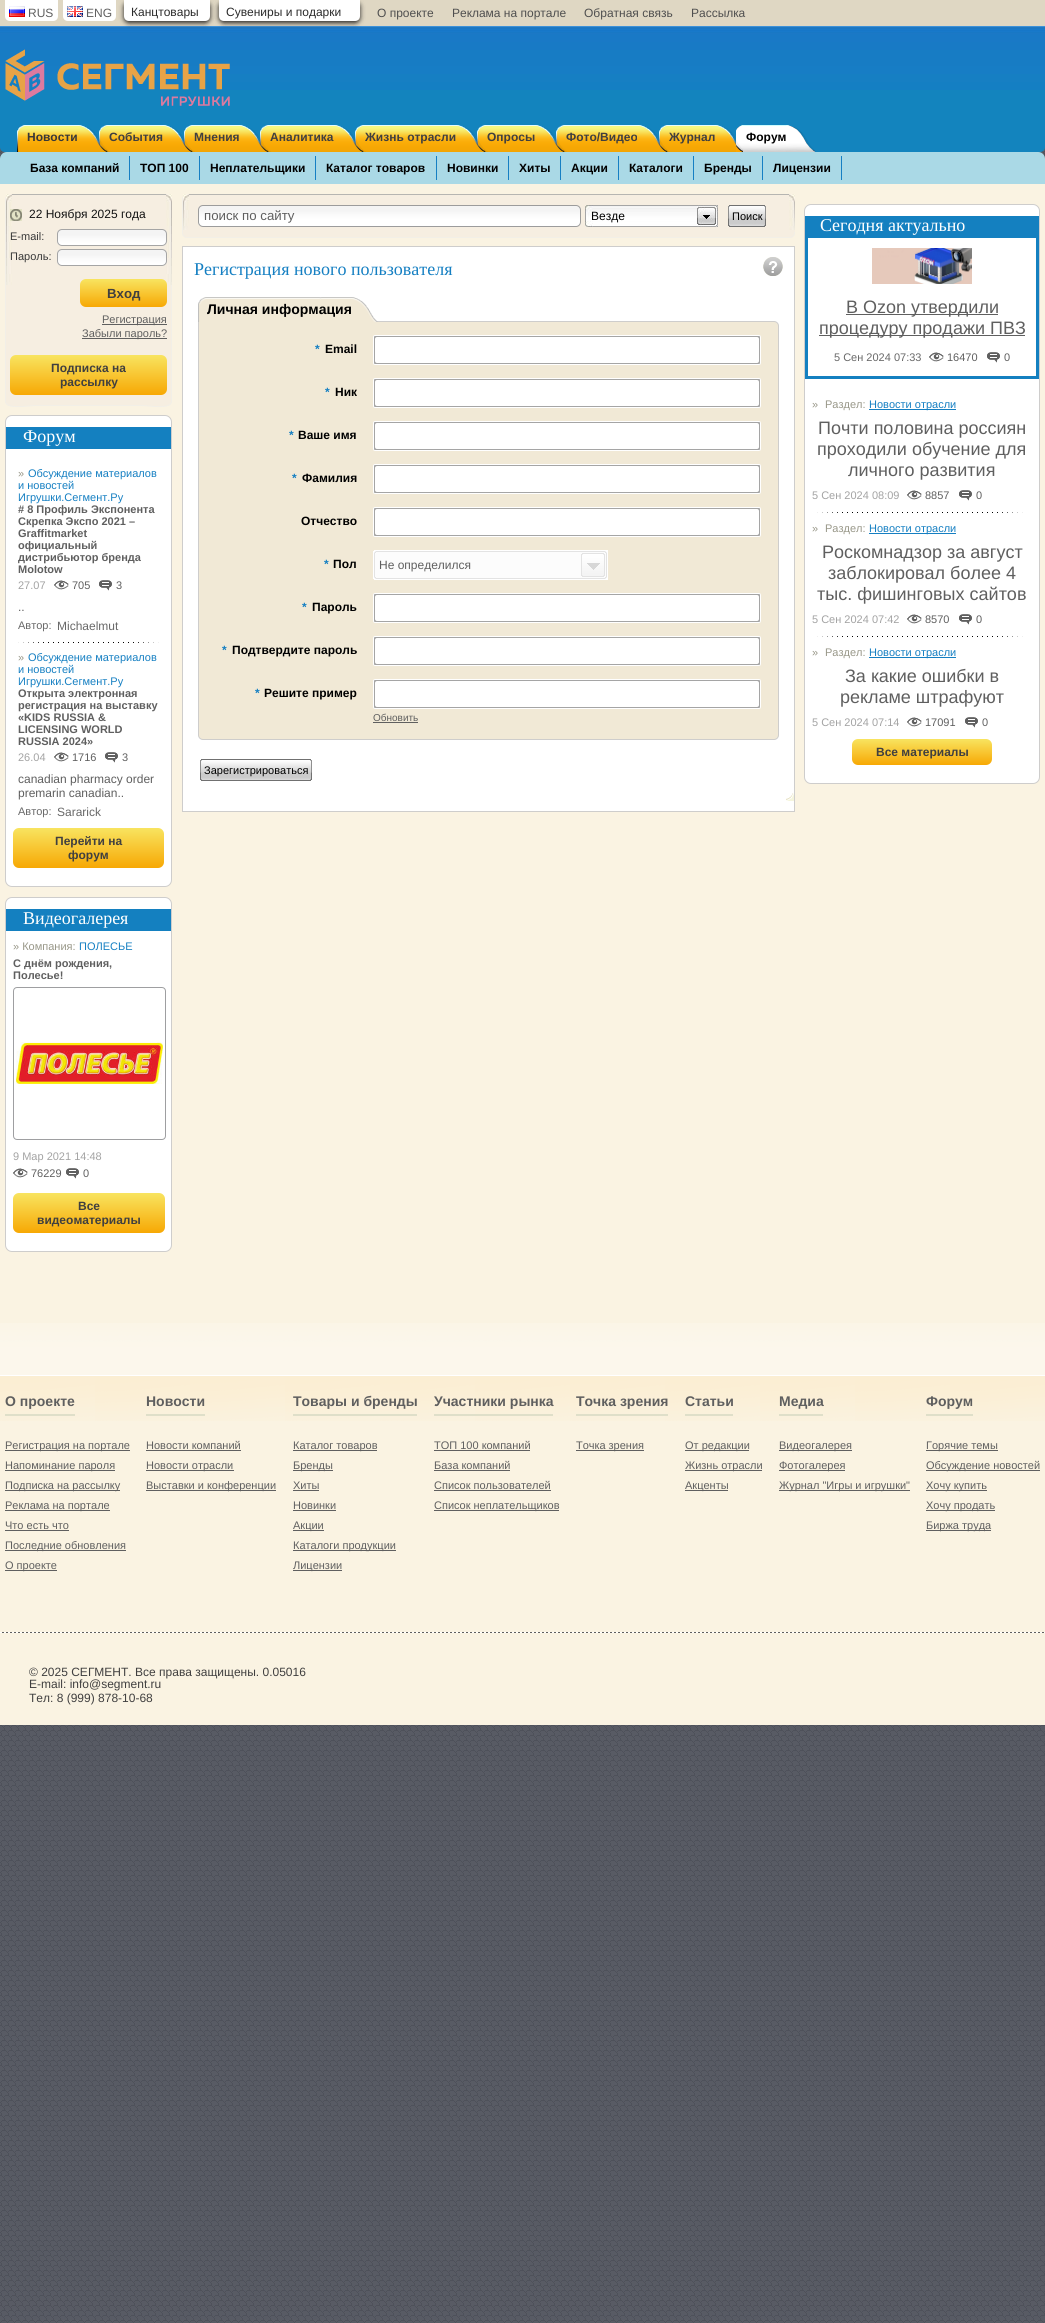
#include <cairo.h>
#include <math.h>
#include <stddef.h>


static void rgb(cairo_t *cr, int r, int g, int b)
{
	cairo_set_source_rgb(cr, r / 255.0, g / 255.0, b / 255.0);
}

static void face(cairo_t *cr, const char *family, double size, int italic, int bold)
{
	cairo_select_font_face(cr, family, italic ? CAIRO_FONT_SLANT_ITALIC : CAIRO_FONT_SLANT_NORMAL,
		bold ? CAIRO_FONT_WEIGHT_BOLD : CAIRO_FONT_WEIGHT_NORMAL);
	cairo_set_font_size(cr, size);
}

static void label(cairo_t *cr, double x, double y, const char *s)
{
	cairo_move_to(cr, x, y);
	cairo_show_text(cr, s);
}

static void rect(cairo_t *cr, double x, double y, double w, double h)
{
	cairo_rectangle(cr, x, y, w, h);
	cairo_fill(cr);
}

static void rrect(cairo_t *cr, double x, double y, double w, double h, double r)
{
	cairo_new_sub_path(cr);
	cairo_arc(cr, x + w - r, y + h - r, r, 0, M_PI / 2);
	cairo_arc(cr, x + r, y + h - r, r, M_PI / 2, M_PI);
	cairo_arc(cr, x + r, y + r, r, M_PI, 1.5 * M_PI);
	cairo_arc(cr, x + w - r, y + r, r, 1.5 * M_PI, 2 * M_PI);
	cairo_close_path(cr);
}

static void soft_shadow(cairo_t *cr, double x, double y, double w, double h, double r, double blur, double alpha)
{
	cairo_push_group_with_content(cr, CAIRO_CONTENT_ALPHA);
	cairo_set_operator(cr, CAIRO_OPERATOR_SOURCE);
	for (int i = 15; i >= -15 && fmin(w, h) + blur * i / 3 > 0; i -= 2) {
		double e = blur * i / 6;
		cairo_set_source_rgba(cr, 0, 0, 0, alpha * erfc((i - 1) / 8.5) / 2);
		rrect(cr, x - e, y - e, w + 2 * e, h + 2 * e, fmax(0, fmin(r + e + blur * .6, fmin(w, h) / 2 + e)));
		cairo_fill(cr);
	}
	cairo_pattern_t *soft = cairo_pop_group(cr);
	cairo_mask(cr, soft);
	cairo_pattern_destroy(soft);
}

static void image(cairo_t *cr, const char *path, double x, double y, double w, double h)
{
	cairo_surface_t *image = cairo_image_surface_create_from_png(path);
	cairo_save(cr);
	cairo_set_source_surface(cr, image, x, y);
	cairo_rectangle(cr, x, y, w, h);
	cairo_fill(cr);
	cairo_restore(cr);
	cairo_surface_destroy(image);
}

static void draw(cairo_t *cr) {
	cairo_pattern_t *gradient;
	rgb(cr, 255, 255, 255);
	cairo_paint(cr);
	image(cr, "image0.png", 0, 147, 1045, 2176);
	rgb(cr, 223, 215, 195);
	rect(cr, 0, 0, 1045, 26);
	rgb(cr, 255, 255, 255);
	cairo_new_path(cr);
	cairo_move_to(cr, 5, 0);
	cairo_line_to(cr, 58, 0);
	cairo_line_to(cr, 58, 16);
	cairo_curve_to(cr, 58, 19, 56, 21, 53, 21);
	cairo_line_to(cr, 10, 21);
	cairo_curve_to(cr, 7, 21, 5, 19, 5, 16);
	cairo_close_path(cr);
	cairo_fill(cr);
	image(cr, "image1.png", 9, 6, 16, 11);
	face(cr, "Liberation Sans", 12, 0, 0);
	rgb(cr, 95, 95, 95);
	label(cr, 28, 17, "RUS");
	rgb(cr, 255, 255, 255);
	cairo_new_path(cr);
	cairo_move_to(cr, 63, 0);
	cairo_line_to(cr, 116, 0);
	cairo_line_to(cr, 116, 16);
	cairo_curve_to(cr, 116, 19, 114, 21, 111, 21);
	cairo_line_to(cr, 68, 21);
	cairo_curve_to(cr, 65, 21, 63, 19, 63, 16);
	cairo_close_path(cr);
	cairo_fill(cr);
	image(cr, "image2.png", 67, 6, 16, 11);
	rgb(cr, 95, 95, 95);
	label(cr, 86, 17, "ENG");
	rgb(cr, 19, 132, 190);
	cairo_new_path(cr);
	cairo_move_to(cr, 0, 26);
	cairo_line_to(cr, 1045, 26);
	cairo_line_to(cr, 1045, 147);
	cairo_curve_to(cr, 1045, 150, 1043, 152, 1040, 152);
	cairo_line_to(cr, 5, 152);
	cairo_curve_to(cr, 2, 152, 0, 150, 0, 147);
	cairo_close_path(cr);
	cairo_fill(cr);
	image(cr, "image3.png", 0, 26, 1045, 64);
	rgb(cr, 34, 34, 34);
	soft_shadow(cr, 124, 2, 86, 21, 5, 2.5, 1);
	rgb(cr, 255, 255, 255);
	cairo_new_path(cr);
	cairo_move_to(cr, 124, 0);
	cairo_line_to(cr, 210, 0);
	cairo_line_to(cr, 210, 16);
	cairo_curve_to(cr, 210, 19, 208, 21, 205, 21);
	cairo_line_to(cr, 129, 21);
	cairo_curve_to(cr, 126, 21, 124, 19, 124, 16);
	cairo_close_path(cr);
	cairo_fill(cr);
	rgb(cr, 43, 43, 43);
	label(cr, 131, 16, "Канцтовары");
	rgb(cr, 34, 34, 34);
	soft_shadow(cr, 219, 2, 141, 21, 5, 2.5, 1);
	rgb(cr, 255, 255, 255);
	cairo_new_path(cr);
	cairo_move_to(cr, 219, 0);
	cairo_line_to(cr, 360, 0);
	cairo_line_to(cr, 360, 16);
	cairo_curve_to(cr, 360, 19, 358, 21, 355, 21);
	cairo_line_to(cr, 224, 21);
	cairo_curve_to(cr, 221, 21, 219, 19, 219, 16);
	cairo_close_path(cr);
	cairo_fill(cr);
	rgb(cr, 43, 43, 43);
	label(cr, 226, 16, "Сувениры и подарки");
	rgb(cr, 79, 79, 79);
	label(cr, 377, 17, "О проекте");
	label(cr, 452, 17, "Реклама на портале");
	label(cr, 584, 17, "Обратная связь");
	label(cr, 691, 17, "Рассылка");
	image(cr, "image4.png", 5, 49, 225, 57);
	image(cr, "image5.png", 78, 125, 21, 27);
	image(cr, "image6.png", 17, 125, 61, 27);
	face(cr, "Liberation Sans", 12, 0, 1);
	rgb(cr, 56, 56, 56);
	label(cr, 27, 141, "Новости");
	image(cr, "image5.png", 163, 125, 21, 27);
	image(cr, "image7.png", 99, 125, 64, 27);
	rgb(cr, 64, 63, 63);
	label(cr, 109, 141, "События");
	image(cr, "image5.png", 239, 125, 21, 27);
	image(cr, "image8.png", 184, 125, 55, 27);
	label(cr, 194, 141, "Мнения");
	image(cr, "image5.png", 334, 125, 21, 27);
	image(cr, "image9.png", 260, 125, 74, 27);
	label(cr, 270, 141, "Аналитика");
	image(cr, "image5.png", 456, 125, 21, 27);
	image(cr, "image10.png", 355, 125, 101, 27);
	label(cr, 365, 141, "Жизнь отрасли");
	image(cr, "image5.png", 535, 125, 21, 27);
	image(cr, "image11.png", 477, 125, 58, 27);
	label(cr, 487, 141, "Опросы");
	image(cr, "image5.png", 638, 125, 21, 27);
	image(cr, "image12.png", 556, 125, 82, 27);
	label(cr, 566, 141, "Фото/Видео");
	image(cr, "image5.png", 715, 125, 21, 27);
	image(cr, "image13.png", 659, 125, 56, 27);
	label(cr, 669, 141, "Журнал");
	image(cr, "image14.png", 786, 125, 29, 27);
	image(cr, "image15.png", 736, 125, 50, 27);
	rgb(cr, 0, 0, 0);
	label(cr, 746, 141, "Форум");
	rgb(cr, 170, 217, 230);
	cairo_new_path(cr);
	cairo_move_to(cr, 7, 152);
	cairo_line_to(cr, 1038, 152);
	cairo_curve_to(cr, 1042, 152, 1045, 155, 1045, 159);
	cairo_line_to(cr, 1045, 184);
	cairo_line_to(cr, 0, 184);
	cairo_line_to(cr, 0, 159);
	cairo_curve_to(cr, 0, 155, 3, 152, 7, 152);
	cairo_close_path(cr);
	cairo_fill(cr);
	rgb(cr, 22, 127, 195);
	rect(cr, 129, 156, 1, 24);
	rgb(cr, 0, 0, 0);
	label(cr, 30, 172, "База компаний");
	rgb(cr, 22, 127, 195);
	rect(cr, 199, 156, 1, 24);
	rgb(cr, 0, 0, 0);
	label(cr, 140, 172, "ТОП 100");
	rgb(cr, 22, 127, 195);
	rect(cr, 315, 156, 1, 24);
	rgb(cr, 0, 0, 0);
	label(cr, 210, 172, "Неплательщики");
	rgb(cr, 22, 127, 195);
	rect(cr, 436, 156, 1, 24);
	rgb(cr, 0, 0, 0);
	label(cr, 326, 172, "Каталог товаров");
	rgb(cr, 22, 127, 195);
	rect(cr, 508, 156, 1, 24);
	rgb(cr, 0, 0, 0);
	label(cr, 447, 172, "Новинки");
	rgb(cr, 22, 127, 195);
	rect(cr, 560, 156, 1, 24);
	rgb(cr, 0, 0, 0);
	label(cr, 519, 172, "Хиты");
	rgb(cr, 22, 127, 195);
	rect(cr, 618, 156, 1, 24);
	rgb(cr, 0, 0, 0);
	label(cr, 571, 172, "Акции");
	rgb(cr, 22, 127, 195);
	rect(cr, 693, 156, 1, 24);
	rgb(cr, 0, 0, 0);
	label(cr, 629, 172, "Каталоги");
	rgb(cr, 22, 127, 195);
	rect(cr, 762, 156, 1, 24);
	rgb(cr, 0, 0, 0);
	label(cr, 704, 172, "Бренды");
	rgb(cr, 22, 127, 195);
	rect(cr, 841, 156, 1, 24);
	rgb(cr, 0, 0, 0);
	label(cr, 773, 172, "Лицензии");
	rgb(cr, 250, 243, 226);
	rect(cr, 0, 184, 1045, 1541);
	rgb(cr, 246, 238, 225);
	rrect(cr, 5, 194, 167, 212, 5);
	cairo_fill(cr);
	cairo_new_path(cr);
	cairo_move_to(cr, 7, 196);
	cairo_curve_to(cr, 7.5, 195, 9, 194.5, 10, 194.5);
	cairo_line_to(cr, 167, 194.5);
	cairo_curve_to(cr, 168, 194.5, 169.5, 195, 170, 196);
	rgb(cr, 182, 181, 177);
	cairo_set_line_width(cr, 1);
	cairo_stroke(cr);
	cairo_new_path(cr);
	cairo_move_to(cr, 170, 196);
	cairo_line_to(cr, 171.5, 199);
	cairo_line_to(cr, 171.5, 401);
	cairo_curve_to(cr, 171.5, 410, 149.5, 405.5, 141, 405.5);
	cairo_line_to(cr, 36, 405.5);
	cairo_curve_to(cr, 27.5, 405.5, 5.5, 410, 5.5, 401);
	cairo_line_to(cr, 5.5, 199);
	cairo_line_to(cr, 7, 196);
	rgb(cr, 242, 239, 231);
	cairo_stroke(cr);
	image(cr, "image16.png", 6, 194, 6, 91);
	image(cr, "image17.png", 10, 209, 12, 12);
	face(cr, "Liberation Sans", 12, 0, 0);
	rgb(cr, 19, 19, 19);
	label(cr, 29, 218, "22 Ноября 2025 года");
	image(cr, "image18.png", 166, 194, 6, 91);
	face(cr, "Liberation Sans", 11, 0, 0);
	rgb(cr, 56, 56, 56);
	label(cr, 10, 240, "E-mail:");
	image(cr, "image19.png", 57, 230, 110, 16);
	rrect(cr, 57.5, 229.5, 109, 16, 4.5);
	rgb(cr, 165, 165, 165);
	cairo_stroke(cr);
	rgb(cr, 56, 56, 56);
	label(cr, 10, 260, "Пароль:");
	image(cr, "image20.png", 57, 250, 110, 16);
	rrect(cr, 57.5, 249.5, 109, 16, 4.5);
	rgb(cr, 165, 165, 165);
	cairo_stroke(cr);
	gradient = cairo_pattern_create_linear(124, 279, 124, 307);
	cairo_pattern_add_color_stop_rgba(gradient, 0, 0.973, 0.894, 0.376, 1);
	cairo_pattern_add_color_stop_rgba(gradient, 1, 0.969, 0.659, 0.016, 1);
	cairo_set_source(cr, gradient);
	cairo_pattern_destroy(gradient);
	rrect(cr, 80, 279, 87, 28, 6);
	cairo_fill(cr);
	face(cr, "Liberation Sans", 13.25, 0, 1);
	rgb(cr, 64, 63, 63);
	label(cr, 107, 298, "Вход");
	rgb(cr, 95, 95, 95);
	rect(cr, 102, 324, 65, 1);
	face(cr, "Liberation Sans", 11, 0, 0);
	label(cr, 102, 323, "Регистрация");
	rect(cr, 82, 338, 85, 1);
	label(cr, 82, 337, "Забыли пароль?");
	gradient = cairo_pattern_create_linear(89, 355, 89, 395);
	cairo_pattern_add_color_stop_rgba(gradient, 0, 0.973, 0.894, 0.376, 1);
	cairo_pattern_add_color_stop_rgba(gradient, 1, 0.969, 0.659, 0.016, 1);
	cairo_set_source(cr, gradient);
	cairo_pattern_destroy(gradient);
	rrect(cr, 10, 355, 157, 40, 6);
	cairo_fill(cr);
	face(cr, "Liberation Sans", 12, 0, 1);
	rgb(cr, 64, 63, 63);
	label(cr, 51, 372, "Подписка на");
	label(cr, 60, 386, "рассылку");
	rgb(cr, 255, 255, 255);
	rrect(cr, 5.5, 415.5, 166, 471, 6.5);
	cairo_fill_preserve(cr);
	rgb(cr, 206, 205, 204);
	cairo_stroke(cr);
	rgb(cr, 20, 128, 192);
	rect(cr, 6, 427, 165, 22);
	face(cr, "Liberation Serif", 18, 0, 0);
	rgb(cr, 255, 255, 255);
	label(cr, 23, 442, "Форум");
	face(cr, "Liberation Sans", 11, 0, 0);
	rgb(cr, 152, 151, 136);
	label(cr, 18, 477, "»");
	rgb(cr, 21, 127, 194);
	label(cr, 28, 477, "Обсуждение материалов");
	label(cr, 18, 489, "и новостей");
	label(cr, 18, 501, "Игрушки.Сегмент.Ру");
	face(cr, "Liberation Sans", 11, 0, 1);
	rgb(cr, 95, 95, 95);
	label(cr, 18, 513, "# 8 Профиль Экспонента");
	label(cr, 18, 525, "Скрепка Экспо 2021 –");
	label(cr, 18, 537, "Graffitmarket");
	label(cr, 18, 549, "официальный");
	label(cr, 18, 561, "дистрибьютор бренда");
	label(cr, 18, 573, "Molotow");
	face(cr, "Liberation Sans", 11, 0, 0);
	rgb(cr, 163, 163, 163);
	label(cr, 18, 589, "27.07");
	image(cr, "image21.png", 54, 580, 15, 10);
	rgb(cr, 95, 95, 95);
	label(cr, 72, 589, "705");
	image(cr, "image22.png", 99, 580, 13, 11);
	label(cr, 116, 589, "3");
	face(cr, "Liberation Sans", 12, 0, 0);
	label(cr, 18, 611, "..");
	face(cr, "Liberation Sans", 11, 0, 0);
	rgb(cr, 104, 104, 104);
	label(cr, 18, 629, "Автор:");
	face(cr, "Liberation Sans", 12, 0, 0);
	label(cr, 57, 630, "Michaelmut");
	image(cr, "image23.png", 18, 642, 141, 1);
	image(cr, "image24.png", 13, 642, 31, 1);
	image(cr, "image25.png", 133, 642, 31, 1);
	face(cr, "Liberation Sans", 11, 0, 0);
	rgb(cr, 152, 151, 136);
	label(cr, 18, 661, "»");
	rgb(cr, 21, 127, 194);
	label(cr, 28, 661, "Обсуждение материалов");
	label(cr, 18, 673, "и новостей");
	label(cr, 18, 685, "Игрушки.Сегмент.Ру");
	face(cr, "Liberation Sans", 11, 0, 1);
	rgb(cr, 95, 95, 95);
	label(cr, 18, 697, "Открыта электронная");
	label(cr, 18, 709, "регистрация на выставку");
	label(cr, 18, 721, "«KIDS RUSSIA &");
	label(cr, 18, 733, "LICENSING WORLD");
	label(cr, 18, 745, "RUSSIA 2024»");
	face(cr, "Liberation Sans", 11, 0, 0);
	rgb(cr, 163, 163, 163);
	label(cr, 18, 761, "26.04");
	image(cr, "image21.png", 54, 752, 15, 10);
	rgb(cr, 95, 95, 95);
	label(cr, 72, 761, "1716");
	image(cr, "image22.png", 105, 752, 13, 11);
	label(cr, 122, 761, "3");
	face(cr, "Liberation Sans", 12, 0, 0);
	label(cr, 18, 783, "canadian pharmacy order");
	label(cr, 18, 797, "premarin canadian..");
	face(cr, "Liberation Sans", 11, 0, 0);
	rgb(cr, 104, 104, 104);
	label(cr, 18, 815, "Автор:");
	face(cr, "Liberation Sans", 12, 0, 0);
	label(cr, 57, 816, "Sararick");
	gradient = cairo_pattern_create_linear(89, 828, 89, 868);
	cairo_pattern_add_color_stop_rgba(gradient, 0, 0.973, 0.894, 0.376, 1);
	cairo_pattern_add_color_stop_rgba(gradient, 1, 0.969, 0.659, 0.016, 1);
	cairo_set_source(cr, gradient);
	cairo_pattern_destroy(gradient);
	rrect(cr, 13, 828, 151, 40, 6);
	cairo_fill(cr);
	face(cr, "Liberation Sans", 12, 0, 1);
	rgb(cr, 64, 63, 63);
	label(cr, 55, 845, "Перейти на");
	label(cr, 68, 859, "форум");
	rgb(cr, 255, 255, 255);
	rrect(cr, 5.5, 897.5, 166, 354, 6.5);
	cairo_fill_preserve(cr);
	rgb(cr, 206, 205, 204);
	cairo_stroke(cr);
	rgb(cr, 20, 128, 192);
	rect(cr, 6, 909, 165, 22);
	face(cr, "Liberation Serif", 18, 0, 0);
	rgb(cr, 255, 255, 255);
	label(cr, 23, 924, "Видеогалерея");
	face(cr, "Liberation Sans", 11, 0, 0);
	rgb(cr, 152, 151, 136);
	label(cr, 13, 950, "» Компания:");
	rgb(cr, 21, 127, 194);
	label(cr, 79, 950, "ПОЛЕСЬЕ");
	face(cr, "Liberation Sans", 11, 0, 1);
	rgb(cr, 95, 95, 95);
	label(cr, 13, 967, "С днём рождения,");
	label(cr, 13, 979, "Полесье!");
	rrect(cr, 13.5, 987.5, 152, 152, 3.5);
	rgb(cr, 158, 159, 161);
	cairo_stroke(cr);
	image(cr, "image26.png", 16, 1042, 147, 42);
	face(cr, "Liberation Sans", 11, 0, 0);
	rgb(cr, 163, 163, 163);
	label(cr, 13, 1160, "9 Мар 2021 14:48");
	image(cr, "image21.png", 13, 1168, 15, 10);
	rgb(cr, 95, 95, 95);
	label(cr, 31, 1177, "76229");
	image(cr, "image22.png", 66, 1168, 13, 11);
	label(cr, 83, 1177, "0");
	gradient = cairo_pattern_create_linear(89, 1193, 89, 1233);
	cairo_pattern_add_color_stop_rgba(gradient, 0, 0.973, 0.894, 0.376, 1);
	cairo_pattern_add_color_stop_rgba(gradient, 1, 0.969, 0.659, 0.016, 1);
	cairo_set_source(cr, gradient);
	cairo_pattern_destroy(gradient);
	rrect(cr, 13, 1193, 152, 40, 6);
	cairo_fill(cr);
	face(cr, "Liberation Sans", 12, 0, 1);
	rgb(cr, 64, 63, 63);
	label(cr, 78, 1210, "Все");
	label(cr, 37, 1224, "видеоматериалы");
	rgb(cr, 246, 238, 225);
	rrect(cr, 182, 194, 613, 44, 5);
	cairo_fill(cr);
	cairo_new_path(cr);
	cairo_move_to(cr, 184, 196);
	cairo_curve_to(cr, 184.5, 195, 186, 194.5, 187, 194.5);
	cairo_line_to(cr, 790, 194.5);
	cairo_curve_to(cr, 791, 194.5, 792.5, 195, 793, 196);
	rgb(cr, 182, 181, 177);
	cairo_stroke(cr);
	cairo_new_path(cr);
	cairo_move_to(cr, 793, 196);
	cairo_curve_to(cr, 794, 196.5, 794.5, 198, 794.5, 199);
	cairo_line_to(cr, 794.5, 233);
	cairo_curve_to(cr, 794.5, 234, 794, 235.5, 793, 236);
	cairo_curve_to(cr, 792.5, 237, 791, 237.5, 790, 237.5);
	cairo_line_to(cr, 187, 237.5);
	cairo_curve_to(cr, 186, 237.5, 184.5, 237, 184, 236);
	cairo_curve_to(cr, 183, 235.5, 182.5, 234, 182.5, 233);
	cairo_line_to(cr, 182.5, 199);
	cairo_curve_to(cr, 182.5, 198, 183, 196.5, 184, 196);
	rgb(cr, 242, 239, 231);
	cairo_stroke(cr);
	image(cr, "image27.png", 183, 194, 6, 36);
	image(cr, "image28.png", 198, 206, 383, 20);
	rrect(cr, 198.5, 205.5, 382, 21, 4.5);
	rgb(cr, 156, 156, 156);
	cairo_stroke(cr);
	face(cr, "Liberation Sans", 13.25, 0, 0);
	rgb(cr, 95, 95, 95);
	label(cr, 204, 220, "поиск по сайту");
	image(cr, "image29.png", 585, 205, 133, 22);
	face(cr, "Liberation Sans", 12, 0, 0);
	rgb(cr, 0, 0, 0);
	label(cr, 591, 220, "Везде");
	image(cr, "image30.png", 697, 205, 21, 22);
	image(cr, "image31.png", 759, 205, 7, 22);
	image(cr, "image32.png", 728, 205, 31, 22);
	face(cr, "Liberation Sans", 11, 0, 0);
	label(cr, 732, 220, "Поиск");
	rgb(cr, 246, 238, 225);
	rect(cr, 789, 230, 6, 2);
	image(cr, "image33.png", 789, 194, 6, 36);
	rgb(cr, 255, 255, 255);
	cairo_rectangle(cr, 182.5, 246.5, 612, 565);
	cairo_fill_preserve(cr);
	rgb(cr, 206, 205, 204);
	cairo_stroke(cr);
	face(cr, "Liberation Serif", 18, 0, 0);
	rgb(cr, 21, 127, 194);
	label(cr, 194, 275, "Регистрация нового пользователя");
	image(cr, "image34.png", 763, 257, 20, 19);
	rgb(cr, 241, 233, 214);
	cairo_new_path(cr);
	cairo_move_to(cr, 198.5, 321.5);
	cairo_line_to(cr, 774, 321.5);
	cairo_curve_to(cr, 776.5, 321.5, 778.5, 323.5, 778.5, 326);
	cairo_line_to(cr, 778.5, 735);
	cairo_curve_to(cr, 778.5, 737.5, 776.5, 739.5, 774, 739.5);
	cairo_line_to(cr, 203, 739.5);
	cairo_curve_to(cr, 200.5, 739.5, 198.5, 737.5, 198.5, 735);
	cairo_close_path(cr);
	cairo_fill_preserve(cr);
	rgb(cr, 206, 205, 204);
	cairo_stroke(cr);
	image(cr, "image35.png", 352, 297, 26, 25);
	image(cr, "image36.png", 198, 297, 154, 25);
	face(cr, "Liberation Sans", 14, 0, 1);
	rgb(cr, 0, 0, 0);
	label(cr, 207, 314, "Личная информация");
	face(cr, "Liberation Sans", 12, 0, 1);
	rgb(cr, 21, 127, 194);
	label(cr, 315, 353, "*");
	rgb(cr, 0, 0, 0);
	label(cr, 325, 353, "Email");
	rgb(cr, 165, 165, 165);
	rrect(cr, 373.5, 335.5, 387, 29, 1.5);
	cairo_fill_preserve(cr);
	rgb(cr, 255, 255, 255);
	cairo_stroke(cr);
	rrect(cr, 375, 337, 384, 26, 2);
	cairo_fill(cr);
	rgb(cr, 21, 127, 194);
	label(cr, 325, 396, "*");
	rgb(cr, 0, 0, 0);
	label(cr, 335, 396, "Ник");
	rgb(cr, 165, 165, 165);
	rrect(cr, 373.5, 378.5, 387, 29, 1.5);
	cairo_fill_preserve(cr);
	rgb(cr, 255, 255, 255);
	cairo_stroke(cr);
	rrect(cr, 375, 380, 384, 26, 2);
	cairo_fill(cr);
	rgb(cr, 21, 127, 194);
	label(cr, 289, 439, "*");
	rgb(cr, 0, 0, 0);
	label(cr, 298, 439, "Ваше имя");
	rgb(cr, 165, 165, 165);
	rrect(cr, 373.5, 421.5, 387, 29, 1.5);
	cairo_fill_preserve(cr);
	rgb(cr, 255, 255, 255);
	cairo_stroke(cr);
	rrect(cr, 375, 423, 384, 26, 2);
	cairo_fill(cr);
	rgb(cr, 21, 127, 194);
	label(cr, 292, 482, "*");
	rgb(cr, 0, 0, 0);
	label(cr, 302, 482, "Фамилия");
	rgb(cr, 165, 165, 165);
	rrect(cr, 373.5, 464.5, 387, 29, 1.5);
	cairo_fill_preserve(cr);
	rgb(cr, 255, 255, 255);
	cairo_stroke(cr);
	rrect(cr, 375, 466, 384, 26, 2);
	cairo_fill(cr);
	rgb(cr, 0, 0, 0);
	label(cr, 301, 525, "Отчество");
	rgb(cr, 165, 165, 165);
	rrect(cr, 373.5, 507.5, 387, 29, 1.5);
	cairo_fill_preserve(cr);
	rgb(cr, 255, 255, 255);
	cairo_stroke(cr);
	rrect(cr, 375, 509, 384, 26, 2);
	cairo_fill(cr);
	rgb(cr, 21, 127, 194);
	label(cr, 324, 568, "*");
	rgb(cr, 0, 0, 0);
	label(cr, 333, 568, "Пол");
	image(cr, "image37.png", 373, 550, 235, 30);
	face(cr, "Liberation Sans", 12, 0, 0);
	rgb(cr, 95, 95, 95);
	label(cr, 379, 569, "Не определился");
	image(cr, "image38.png", 581, 551, 27, 28);
	face(cr, "Liberation Sans", 12, 0, 1);
	rgb(cr, 21, 127, 194);
	label(cr, 302, 611, "*");
	rgb(cr, 0, 0, 0);
	label(cr, 312, 611, "Пароль");
	rgb(cr, 165, 165, 165);
	rrect(cr, 373.5, 593.5, 387, 29, 1.5);
	cairo_fill_preserve(cr);
	rgb(cr, 255, 255, 255);
	cairo_stroke(cr);
	rrect(cr, 375, 595, 384, 26, 2);
	cairo_fill(cr);
	rgb(cr, 21, 127, 194);
	label(cr, 222, 654, "*");
	rgb(cr, 0, 0, 0);
	label(cr, 232, 654, "Подтвердите пароль");
	rgb(cr, 165, 165, 165);
	rrect(cr, 373.5, 636.5, 387, 29, 1.5);
	cairo_fill_preserve(cr);
	rgb(cr, 255, 255, 255);
	cairo_stroke(cr);
	rrect(cr, 375, 638, 384, 26, 2);
	cairo_fill(cr);
	rgb(cr, 21, 127, 194);
	label(cr, 255, 697, "*");
	rgb(cr, 0, 0, 0);
	label(cr, 264, 697, "Решите пример");
	rgb(cr, 165, 165, 165);
	rrect(cr, 373.5, 679.5, 387, 29, 1.5);
	cairo_fill_preserve(cr);
	rgb(cr, 255, 255, 255);
	cairo_stroke(cr);
	rrect(cr, 375, 681, 384, 26, 2);
	cairo_fill(cr);
	face(cr, "Liberation Sans", 10, 0, 0);
	rgb(cr, 95, 95, 95);
	label(cr, 373, 721, "Обновить");
	rect(cr, 373, 722, 45, 1);
	image(cr, "image39.png", 305, 759, 7, 22);
	image(cr, "image40.png", 200, 759, 105, 22);
	face(cr, "Liberation Sans", 11, 0, 0);
	rgb(cr, 0, 0, 0);
	label(cr, 204, 774, "Зарегистрироваться");
	image(cr, "image41.png", 786, 793, 8, 8);
	rgb(cr, 255, 255, 255);
	rrect(cr, 804.5, 204.5, 235, 579, 6.5);
	cairo_fill_preserve(cr);
	rgb(cr, 206, 205, 204);
	cairo_stroke(cr);
	rgb(cr, 20, 128, 192);
	rect(cr, 805, 216, 234, 22);
	face(cr, "Liberation Serif", 18, 0, 0);
	rgb(cr, 255, 255, 255);
	label(cr, 820, 231, "Сегодня актуально");
	rgb(cr, 20, 128, 192);
	rect(cr, 1036, 238, 3, 141);
	rect(cr, 805, 376, 234, 3);
	rect(cr, 805, 238, 3, 141);
	image(cr, "image42.png", 872, 248, 100, 36);
	rgb(cr, 95, 95, 95);
	rect(cr, 846, 314, 152, 1);
	face(cr, "Liberation Sans", 18, 0, 0);
	label(cr, 846, 313, "В Ozon утвердили");
	rect(cr, 819, 335, 206, 1);
	label(cr, 819, 334, "процедуру продажи ПВЗ");
	face(cr, "Liberation Sans", 11, 0, 0);
	rgb(cr, 104, 104, 104);
	label(cr, 834, 361, "5 Сен 2024 07:33");
	image(cr, "image21.png", 929, 352, 15, 10);
	rgb(cr, 95, 95, 95);
	label(cr, 947, 361, "16470");
	image(cr, "image22.png", 987, 352, 13, 11);
	label(cr, 1004, 361, "0");
	rgb(cr, 152, 151, 136);
	label(cr, 812, 408, "»");
	label(cr, 825, 408, "Раздел:");
	rgb(cr, 21, 127, 194);
	rect(cr, 869, 409, 87, 1);
	label(cr, 869, 408, "Новости отрасли");
	face(cr, "Liberation Sans", 18, 0, 0);
	rgb(cr, 95, 95, 95);
	label(cr, 818, 434, "Почти половина россиян");
	label(cr, 817, 455, "проходили обучение для");
	label(cr, 848, 476, "личного развития");
	face(cr, "Liberation Sans", 11, 0, 0);
	rgb(cr, 163, 163, 163);
	label(cr, 812, 499, "5 Сен 2024 08:09");
	image(cr, "image21.png", 907, 490, 15, 10);
	rgb(cr, 95, 95, 95);
	label(cr, 925, 499, "8857");
	image(cr, "image22.png", 959, 490, 13, 11);
	label(cr, 976, 499, "0");
	image(cr, "image43.png", 817, 512, 206, 1);
	image(cr, "image24.png", 812, 512, 31, 1);
	image(cr, "image25.png", 997, 512, 31, 1);
	rgb(cr, 152, 151, 136);
	label(cr, 812, 532, "»");
	label(cr, 825, 532, "Раздел:");
	rgb(cr, 21, 127, 194);
	rect(cr, 869, 533, 87, 1);
	label(cr, 869, 532, "Новости отрасли");
	face(cr, "Liberation Sans", 18, 0, 0);
	rgb(cr, 95, 95, 95);
	label(cr, 822, 558, "Роскомнадзор за август");
	label(cr, 828, 579, "заблокировал более 4");
	label(cr, 817, 600, "тыс. фишинговых сайтов");
	face(cr, "Liberation Sans", 11, 0, 0);
	rgb(cr, 163, 163, 163);
	label(cr, 812, 623, "5 Сен 2024 07:42");
	image(cr, "image21.png", 907, 614, 15, 10);
	rgb(cr, 95, 95, 95);
	label(cr, 925, 623, "8570");
	image(cr, "image22.png", 959, 614, 13, 11);
	label(cr, 976, 623, "0");
	image(cr, "image43.png", 817, 636, 206, 1);
	image(cr, "image24.png", 812, 636, 31, 1);
	image(cr, "image25.png", 997, 636, 31, 1);
	rgb(cr, 152, 151, 136);
	label(cr, 812, 656, "»");
	label(cr, 825, 656, "Раздел:");
	rgb(cr, 21, 127, 194);
	rect(cr, 869, 657, 87, 1);
	label(cr, 869, 656, "Новости отрасли");
	face(cr, "Liberation Sans", 18, 0, 0);
	rgb(cr, 95, 95, 95);
	label(cr, 845, 682, "За какие ошибки в");
	label(cr, 840, 703, "рекламе штрафуют");
	face(cr, "Liberation Sans", 11, 0, 0);
	rgb(cr, 163, 163, 163);
	label(cr, 812, 726, "5 Сен 2024 07:14");
	image(cr, "image21.png", 907, 717, 15, 10);
	rgb(cr, 95, 95, 95);
	label(cr, 925, 726, "17091");
	image(cr, "image22.png", 965, 717, 13, 11);
	label(cr, 982, 726, "0");
	gradient = cairo_pattern_create_linear(922, 739, 922, 765);
	cairo_pattern_add_color_stop_rgba(gradient, 0, 0.973, 0.894, 0.376, 1);
	cairo_pattern_add_color_stop_rgba(gradient, 1, 0.969, 0.659, 0.016, 1);
	cairo_set_source(cr, gradient);
	cairo_pattern_destroy(gradient);
	rrect(cr, 852, 739, 140, 26, 6);
	cairo_fill(cr);
	face(cr, "Liberation Sans", 12, 0, 1);
	rgb(cr, 64, 63, 63);
	label(cr, 876, 756, "Все материалы");
	image(cr, "image44.png", 0, 1323, 1045, 98);
	rgb(cr, 223, 223, 201);
	rect(cr, 5, 1414, 70, 2);
	face(cr, "Liberation Sans", 14, 0, 1);
	rgb(cr, 95, 95, 95);
	label(cr, 5, 1406, "О проекте");
	rect(cr, 5, 1450, 125, 1);
	face(cr, "Liberation Sans", 11, 0, 0);
	label(cr, 5, 1449, "Регистрация на портале");
	rect(cr, 5, 1470, 110, 1);
	label(cr, 5, 1469, "Напоминание пароля");
	rect(cr, 5, 1490, 115, 1);
	label(cr, 5, 1489, "Подписка на рассылку");
	rect(cr, 5, 1510, 105, 1);
	label(cr, 5, 1509, "Реклама на портале");
	label(cr, 5, 1529, "Что есть что");
	rect(cr, 5, 1530, 64, 1);
	rect(cr, 5, 1550, 121, 1);
	label(cr, 5, 1549, "Последние обновления");
	rect(cr, 5, 1570, 52, 1);
	label(cr, 5, 1569, "О проекте");
	rgb(cr, 223, 223, 201);
	rect(cr, 146, 1414, 59, 2);
	face(cr, "Liberation Sans", 14, 0, 1);
	rgb(cr, 95, 95, 95);
	label(cr, 146, 1406, "Новости");
	face(cr, "Liberation Sans", 11, 0, 0);
	label(cr, 146, 1449, "Новости компаний");
	rect(cr, 146, 1450, 95, 1);
	rect(cr, 146, 1470, 88, 1);
	label(cr, 146, 1469, "Новости отрасли");
	rect(cr, 146, 1490, 130, 1);
	label(cr, 146, 1489, "Выставки и конференции");
	rgb(cr, 223, 223, 201);
	rect(cr, 293, 1414, 124, 2);
	face(cr, "Liberation Sans", 14, 0, 1);
	rgb(cr, 95, 95, 95);
	label(cr, 293, 1406, "Товары и бренды");
	rect(cr, 293, 1450, 84, 1);
	face(cr, "Liberation Sans", 11, 0, 0);
	label(cr, 293, 1449, "Каталог товаров");
	rect(cr, 293, 1470, 40, 1);
	label(cr, 293, 1469, "Бренды");
	label(cr, 293, 1489, "Хиты");
	rect(cr, 293, 1490, 26, 1);
	label(cr, 293, 1509, "Новинки");
	rect(cr, 293, 1510, 43, 1);
	rect(cr, 293, 1530, 31, 1);
	label(cr, 293, 1529, "Акции");
	rect(cr, 293, 1550, 103, 1);
	label(cr, 293, 1549, "Каталоги продукции");
	rect(cr, 293, 1570, 49, 1);
	label(cr, 293, 1569, "Лицензии");
	rgb(cr, 223, 223, 201);
	rect(cr, 434, 1414, 119, 2);
	face(cr, "Liberation Sans", 14, 0, 1);
	rgb(cr, 95, 95, 95);
	label(cr, 434, 1406, "Участники рынка");
	face(cr, "Liberation Sans", 11, 0, 0);
	label(cr, 434, 1449, "ТОП 100 компаний");
	rect(cr, 434, 1450, 96, 1);
	label(cr, 434, 1469, "База компаний");
	rect(cr, 434, 1470, 76, 1);
	label(cr, 434, 1489, "Список пользователей");
	rect(cr, 434, 1490, 117, 1);
	rect(cr, 434, 1510, 125, 1);
	label(cr, 434, 1509, "Список неплательщиков");
	rgb(cr, 223, 223, 201);
	rect(cr, 576, 1414, 92, 2);
	face(cr, "Liberation Sans", 14, 0, 1);
	rgb(cr, 95, 95, 95);
	label(cr, 576, 1406, "Точка зрения");
	rect(cr, 576, 1450, 68, 1);
	face(cr, "Liberation Sans", 11, 0, 0);
	label(cr, 576, 1449, "Точка зрения");
	rgb(cr, 223, 223, 201);
	rect(cr, 685, 1414, 48, 2);
	face(cr, "Liberation Sans", 14, 0, 1);
	rgb(cr, 95, 95, 95);
	label(cr, 685, 1406, "Статьи");
	rect(cr, 685, 1450, 64, 1);
	face(cr, "Liberation Sans", 11, 0, 0);
	label(cr, 685, 1449, "От редакции");
	rect(cr, 685, 1470, 77, 1);
	label(cr, 685, 1469, "Жизнь отрасли");
	rect(cr, 685, 1490, 43, 1);
	label(cr, 685, 1489, "Акценты");
	rgb(cr, 223, 223, 201);
	rect(cr, 779, 1414, 44, 2);
	face(cr, "Liberation Sans", 14, 0, 1);
	rgb(cr, 95, 95, 95);
	label(cr, 779, 1406, "Медиа");
	rect(cr, 779, 1450, 73, 1);
	face(cr, "Liberation Sans", 11, 0, 0);
	label(cr, 779, 1449, "Видеогалерея");
	rect(cr, 779, 1470, 66, 1);
	label(cr, 779, 1469, "Фотогалерея");
	rect(cr, 779, 1490, 131, 1);
	label(cr, 779, 1489, "Журнал \"Игры и игрушки\"");
	rgb(cr, 223, 223, 201);
	rect(cr, 926, 1414, 47, 2);
	face(cr, "Liberation Sans", 14, 0, 1);
	rgb(cr, 95, 95, 95);
	label(cr, 926, 1406, "Форум");
	rect(cr, 926, 1450, 72, 1);
	face(cr, "Liberation Sans", 11, 0, 0);
	label(cr, 926, 1449, "Горячие темы");
	rect(cr, 926, 1470, 114, 1);
	label(cr, 926, 1469, "Обсуждение новостей");
	rect(cr, 926, 1490, 61, 1);
	label(cr, 926, 1489, "Хочу купить");
	rect(cr, 926, 1510, 69, 1);
	label(cr, 926, 1509, "Хочу продать");
	rect(cr, 926, 1530, 65, 1);
	label(cr, 926, 1529, "Биржа труда");
	image(cr, "image45.png", 0, 1632, 1045, 1);
	face(cr, "Liberation Sans", 12, 0, 0);
	rgb(cr, 64, 63, 63);
	label(cr, 29, 1676, "© 2025 СЕГМЕНТ. Все права защищены. 0.05016");
	label(cr, 29, 1688, "E-mail: info@segment.ru");
	label(cr, 29, 1702, "Тел: 8 (999) 878-10-68");
}

int main(void) {
	cairo_surface_t *surface = cairo_image_surface_create(CAIRO_FORMAT_RGB24, 1045, 2323);
	cairo_t *cr = cairo_create(surface);
	cairo_font_options_t *options = cairo_font_options_create();
	cairo_font_options_set_hint_metrics(options, CAIRO_HINT_METRICS_OFF);
	cairo_font_options_set_hint_style(options, CAIRO_HINT_STYLE_NONE);
	cairo_set_font_options(cr, options);
	cairo_set_miter_limit(cr, 4);
	draw(cr);
	cairo_surface_write_to_png(surface, "render.png");
	cairo_font_options_destroy(options);
	cairo_destroy(cr);
	cairo_surface_destroy(surface);
	return 0;
}
